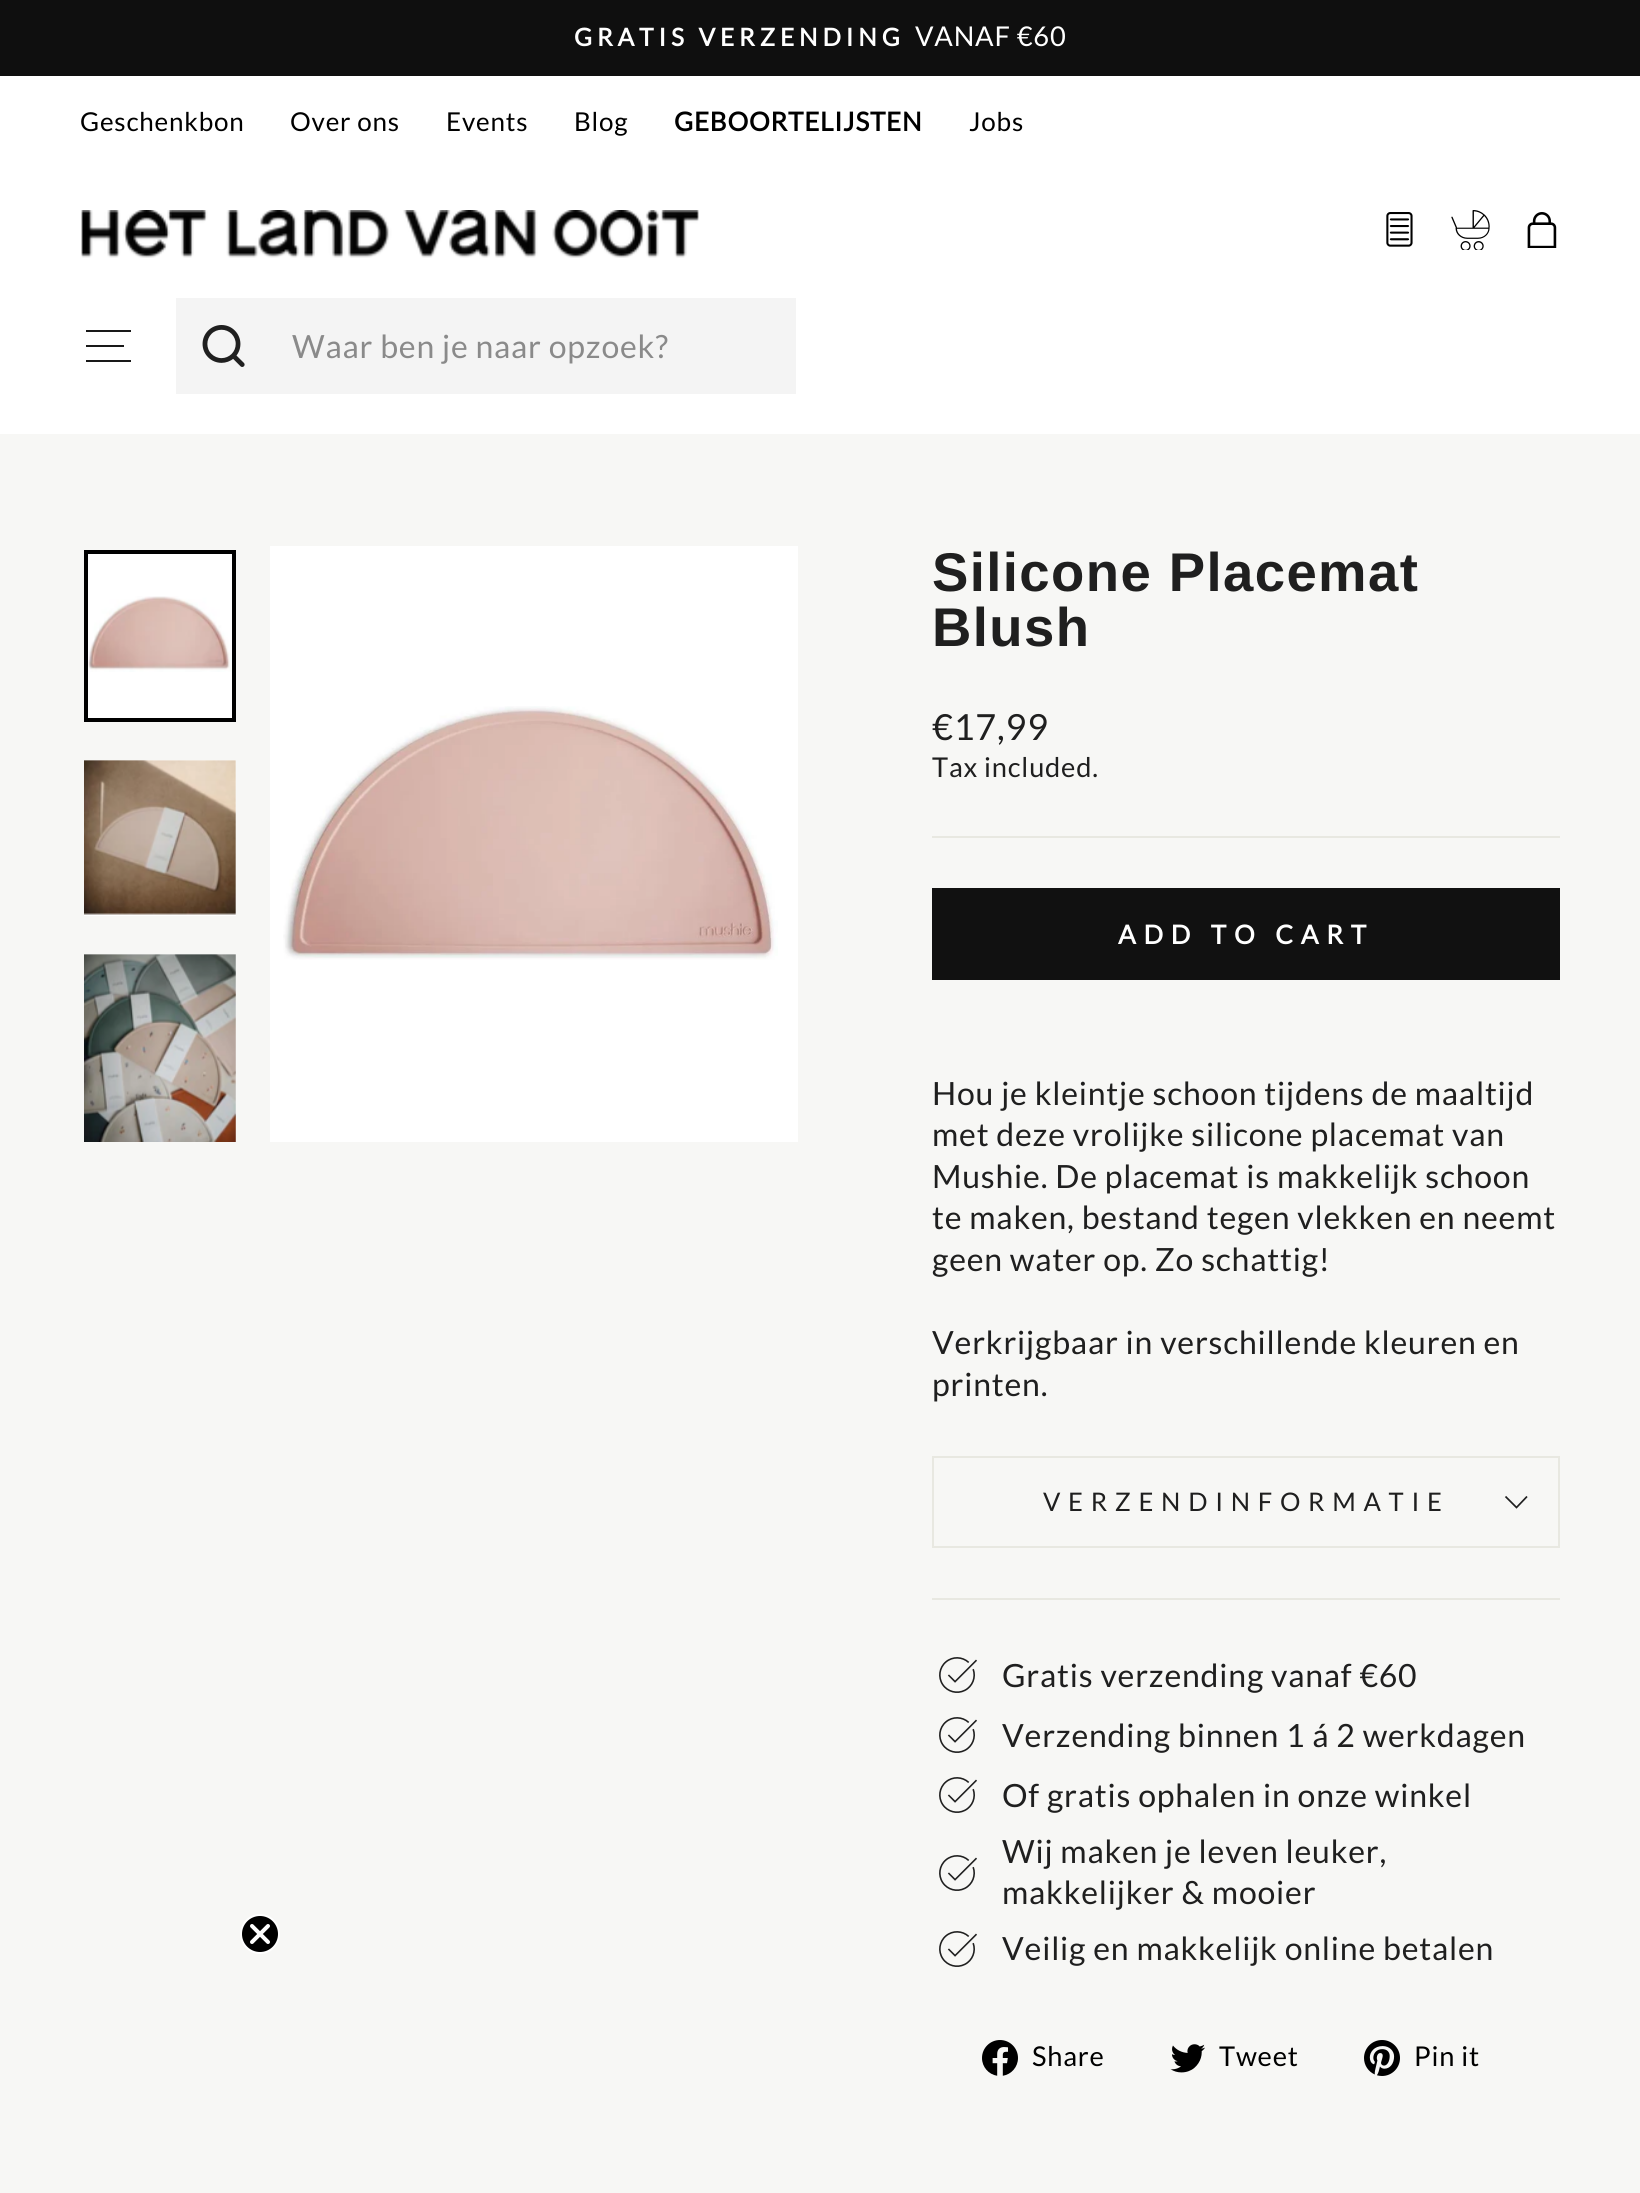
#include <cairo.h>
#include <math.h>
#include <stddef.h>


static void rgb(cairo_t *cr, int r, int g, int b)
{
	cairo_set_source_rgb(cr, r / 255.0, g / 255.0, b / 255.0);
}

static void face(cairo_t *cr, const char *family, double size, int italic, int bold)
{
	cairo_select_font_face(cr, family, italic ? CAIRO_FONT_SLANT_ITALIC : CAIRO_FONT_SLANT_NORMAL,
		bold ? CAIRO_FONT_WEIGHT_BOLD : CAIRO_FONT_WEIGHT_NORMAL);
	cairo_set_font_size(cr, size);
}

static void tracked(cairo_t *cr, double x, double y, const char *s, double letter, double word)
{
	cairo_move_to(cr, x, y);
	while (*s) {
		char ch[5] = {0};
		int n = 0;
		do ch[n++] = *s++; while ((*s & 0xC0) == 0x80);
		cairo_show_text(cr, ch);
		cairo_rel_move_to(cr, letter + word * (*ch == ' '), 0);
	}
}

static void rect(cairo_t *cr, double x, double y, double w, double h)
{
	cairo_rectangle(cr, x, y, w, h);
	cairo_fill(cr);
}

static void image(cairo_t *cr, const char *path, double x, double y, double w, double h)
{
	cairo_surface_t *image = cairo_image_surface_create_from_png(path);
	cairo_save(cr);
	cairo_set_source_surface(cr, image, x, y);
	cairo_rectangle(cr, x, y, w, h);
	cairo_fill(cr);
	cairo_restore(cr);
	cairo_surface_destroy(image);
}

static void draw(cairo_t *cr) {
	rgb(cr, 247, 247, 245);
	cairo_paint(cr);
	rgb(cr, 15, 15, 15);
	rect(cr, 0, 0, 1640, 76);
	face(cr, "Lato", 24.5, 0, 1);
	rgb(cr, 255, 255, 255);
	tracked(cr, 574, 46, "GRATIS VERZENDING", 4.9, 0);
	face(cr, "Lato", 27.25, 0, 0);
	tracked(cr, 915, 46, "VANAF €60", 0.8, 0);
	rect(cr, 0, 76, 1640, 358);
	face(cr, "Lato", 26, 0, 0);
	rgb(cr, 0, 0, 0);
	tracked(cr, 80, 131, "Geschenkbon", 0.8, 0);
	tracked(cr, 290, 131, "Over ons", 0.8, 0);
	tracked(cr, 446, 131, "Events", 0.8, 0);
	tracked(cr, 574, 131, "Blog", 0.8, 0);
	face(cr, "Lato", 26, 0, 1);
	tracked(cr, 674, 131, "GEBOORTELIJSTEN", 0.8, 0);
	face(cr, "Lato", 26, 0, 0);
	tracked(cr, 969, 131, "Jobs", 0.8, 0);
	image(cr, "image0.png", 81, 210, 618, 48);
	image(cr, "image1.png", 1386, 212, 27, 35);
	image(cr, "image2.png", 1451, 210, 39, 40);
	image(cr, "image3.png", 1527, 212, 30, 36);
	cairo_new_path(cr);
	cairo_move_to(cr, 86, 331);
	cairo_line_to(cr, 131, 331);
	cairo_move_to(cr, 86, 346);
	cairo_line_to(cr, 124, 346);
	cairo_move_to(cr, 86, 361);
	cairo_line_to(cr, 131, 361);
	cairo_set_line_width(cr, 1.8);
	cairo_stroke(cr);
	rgb(cr, 244, 244, 244);
	rect(cr, 176, 298, 620, 96);
	image(cr, "image4.png", 202, 325, 43, 42);
	face(cr, "Lato", 32, 0, 0);
	rgb(cr, 138, 138, 138);
	tracked(cr, 292, 358, "Waar ben je naar opzoek?", 0.8, 0);
	rgb(cr, 255, 255, 255);
	rect(cr, 88, 554, 144, 164);
	image(cr, "image5.png", 88, 596, 144, 76);
	cairo_rectangle(cr, 86, 552, 148, 168);
	rgb(cr, 0, 0, 0);
	cairo_set_line_width(cr, 4);
	cairo_stroke(cr);
	rgb(cr, 255, 255, 255);
	rect(cr, 84, 760, 152, 156);
	image(cr, "image6.png", 84, 760, 152, 155);
	rect(cr, 84, 954, 152, 188);
	image(cr, "image7.png", 84, 954, 152, 188);
	rect(cr, 270, 546, 528, 596);
	image(cr, "image8.png", 283, 706, 495, 254);
	face(cr, "Liberation Sans", 54.5, 0, 1);
	rgb(cr, 31, 31, 31);
	tracked(cr, 932, 591, "Silicone Placemat", 1.4, 0);
	tracked(cr, 932, 646, "Blush", 1.4, 0);
	face(cr, "Lato", 36, 0, 0);
	tracked(cr, 932, 740, "€17,99", 0.8, 0);
	face(cr, "Lato", 27.25, 0, 0);
	tracked(cr, 932, 777, "Tax included.", 0.8, 0);
	rgb(cr, 232, 232, 225);
	rect(cr, 932, 836, 628, 2);
	rgb(cr, 17, 17, 17);
	rect(cr, 932, 888, 628, 92);
	face(cr, "Lato", 26, 0, 1);
	rgb(cr, 255, 255, 255);
	tracked(cr, 1118, 944, "ADD TO CART", 7.75, 0);
	face(cr, "Lato", 32, 0, 0);
	rgb(cr, 31, 31, 31);
	tracked(cr, 932, 1105, "Hou je kleintje schoon tijdens de maaltijd", 0.8, 0);
	tracked(cr, 932, 1146, "met deze vrolijke silicone placemat van", 0.8, 0);
	tracked(cr, 932, 1188, "Mushie. De placemat is makkelijk schoon", 0.8, 0);
	tracked(cr, 932, 1229, "te maken, bestand tegen vlekken en neemt", 0.8, 0);
	tracked(cr, 932, 1271, "geen water op. Zo schattig!", 0.8, 0);
	tracked(cr, 932, 1354, "Verkrijgbaar in verschillende kleuren en", 0.8, 0);
	tracked(cr, 932, 1396, "printen.", 0.8, 0);
	rgb(cr, 232, 232, 225);
	rect(cr, 932, 1546, 628, 2);
	rect(cr, 932, 1456, 628, 2);
	rect(cr, 1558, 1456, 2, 90);
	rect(cr, 932, 1456, 2, 90);
	face(cr, "Lato", 25.6, 0, 0);
	rgb(cr, 31, 31, 31);
	tracked(cr, 1043, 1511, "VERZENDINFORMATIE", 7.7, 0);
	cairo_new_path(cr);
	cairo_move_to(cr, 1505.5, 1496.5);
	cairo_line_to(cr, 1516.5, 1507.5);
	cairo_line_to(cr, 1527, 1496.5);
	cairo_set_line_width(cr, 1.7);
	cairo_stroke(cr);
	rgb(cr, 232, 232, 225);
	rect(cr, 932, 1598, 628, 2);
	image(cr, "image9.png", 939, 1657, 38, 36);
	face(cr, "Lato", 32, 0, 0);
	rgb(cr, 31, 31, 31);
	tracked(cr, 1002, 1687, "Gratis verzending vanaf €60", 0.8, 0);
	image(cr, "image9.png", 939, 1717, 38, 36);
	tracked(cr, 1002, 1747, "Verzending binnen 1 á 2 werkdagen", 0.8, 0);
	image(cr, "image9.png", 939, 1777, 38, 36);
	tracked(cr, 1002, 1807, "Of gratis ophalen in onze winkel", 0.8, 0);
	image(cr, "image9.png", 939, 1855, 38, 36);
	tracked(cr, 1002, 1863, "Wij maken je leven leuker,", 0.8, 0);
	tracked(cr, 1002, 1904, "makkelijker & mooier", 0.8, 0);
	image(cr, "image9.png", 939, 1931, 38, 36);
	tracked(cr, 1002, 1960, "Veilig en makkelijk online betalen", 0.8, 0);
	image(cr, "image10.png", 982, 2040, 36, 36);
	face(cr, "Lato", 27.25, 0, 0);
	rgb(cr, 0, 0, 0);
	tracked(cr, 1032, 2066, "Share", 0.8, 0);
	image(cr, "image11.png", 1170, 2044, 35, 29);
	tracked(cr, 1219, 2066, "Tweet", 0.8, 0);
	image(cr, "image12.png", 1364, 2040, 36, 36);
	tracked(cr, 1414, 2066, "Pin it", 0.8, 0);
	cairo_new_path(cr);
	cairo_arc(cr, 260, 1934, 19, 0, 2 * M_PI);
	cairo_fill_preserve(cr);
	rgb(cr, 255, 255, 255);
	cairo_set_line_width(cr, 2);
	cairo_stroke(cr);
	cairo_new_path(cr);
	cairo_move_to(cr, 252, 1926);
	cairo_line_to(cr, 268, 1942);
	cairo_move_to(cr, 252, 1942);
	cairo_line_to(cr, 268, 1926);
	cairo_close_path(cr);
	cairo_set_line_width(cr, 4);
	cairo_set_line_cap(cr, CAIRO_LINE_CAP_ROUND);
	cairo_set_line_join(cr, CAIRO_LINE_JOIN_ROUND);
	cairo_stroke(cr);
}

int main(void) {
	cairo_surface_t *surface = cairo_image_surface_create(CAIRO_FORMAT_RGB24, 1640, 2193);
	cairo_t *cr = cairo_create(surface);
	cairo_font_options_t *options = cairo_font_options_create();
	cairo_font_options_set_hint_metrics(options, CAIRO_HINT_METRICS_OFF);
	cairo_font_options_set_hint_style(options, CAIRO_HINT_STYLE_NONE);
	cairo_set_font_options(cr, options);
	cairo_set_miter_limit(cr, 4);
	draw(cr);
	cairo_surface_write_to_png(surface, "render.png");
	cairo_font_options_destroy(options);
	cairo_destroy(cr);
	cairo_surface_destroy(surface);
	return 0;
}
